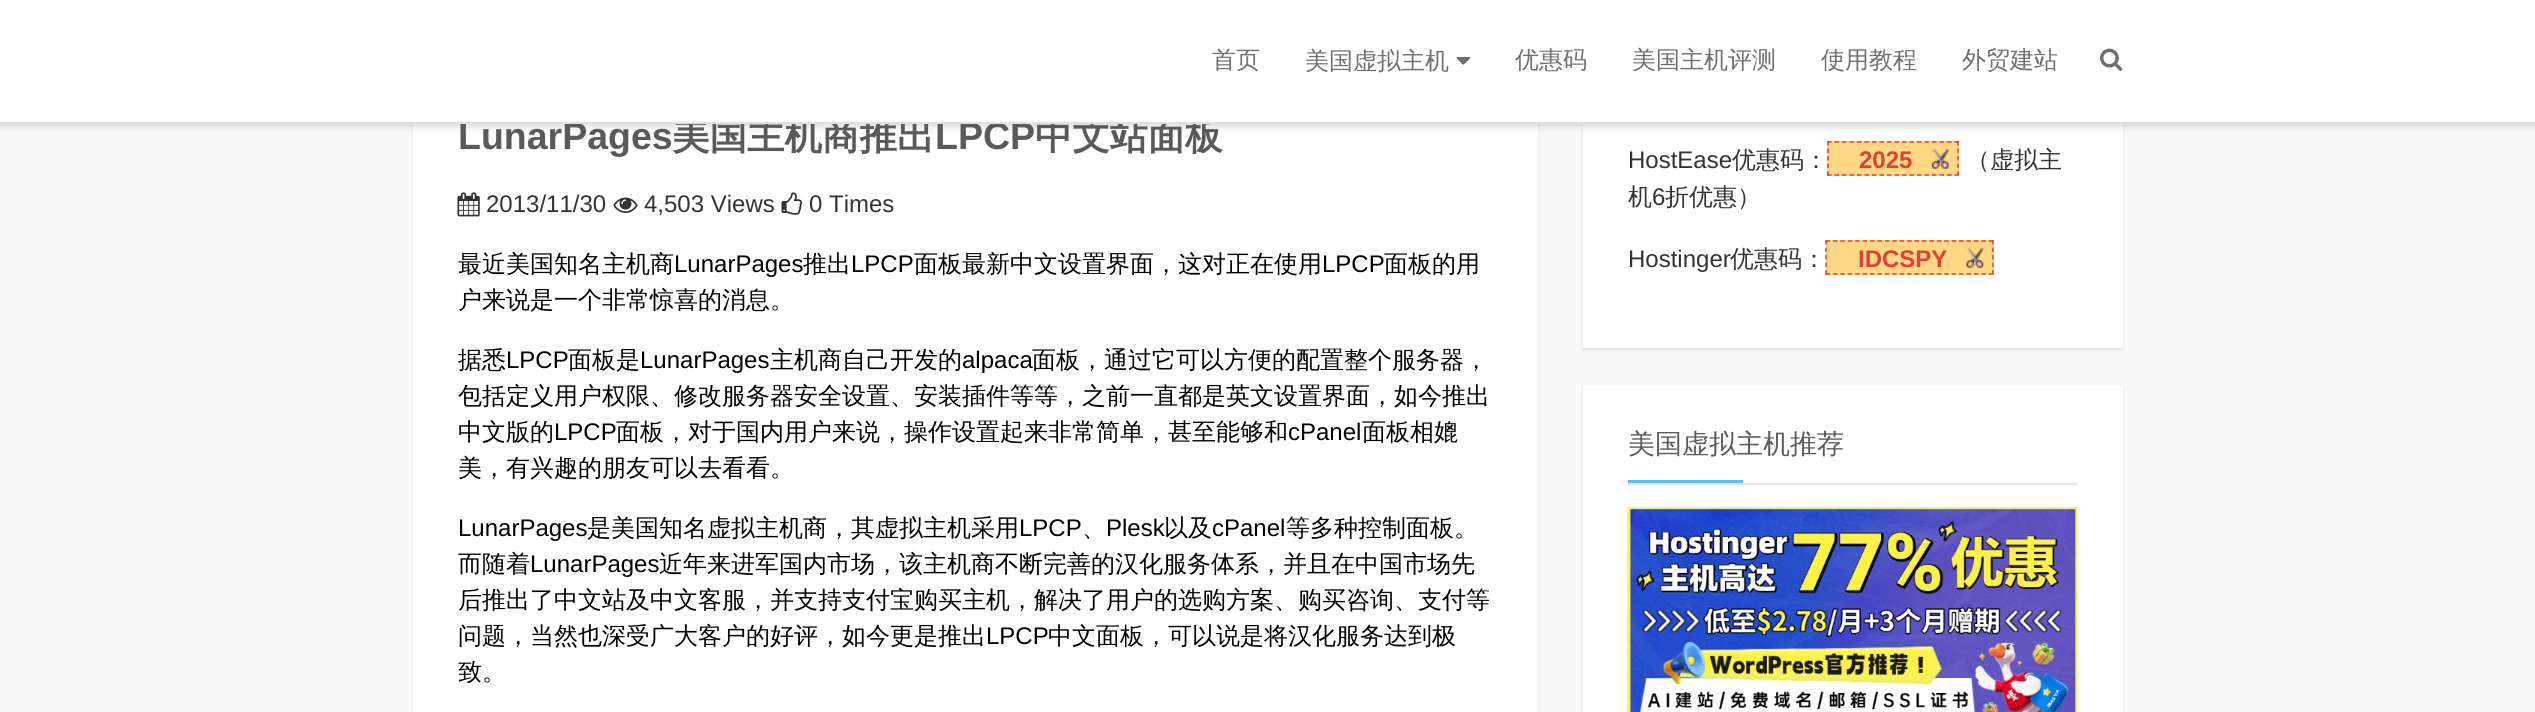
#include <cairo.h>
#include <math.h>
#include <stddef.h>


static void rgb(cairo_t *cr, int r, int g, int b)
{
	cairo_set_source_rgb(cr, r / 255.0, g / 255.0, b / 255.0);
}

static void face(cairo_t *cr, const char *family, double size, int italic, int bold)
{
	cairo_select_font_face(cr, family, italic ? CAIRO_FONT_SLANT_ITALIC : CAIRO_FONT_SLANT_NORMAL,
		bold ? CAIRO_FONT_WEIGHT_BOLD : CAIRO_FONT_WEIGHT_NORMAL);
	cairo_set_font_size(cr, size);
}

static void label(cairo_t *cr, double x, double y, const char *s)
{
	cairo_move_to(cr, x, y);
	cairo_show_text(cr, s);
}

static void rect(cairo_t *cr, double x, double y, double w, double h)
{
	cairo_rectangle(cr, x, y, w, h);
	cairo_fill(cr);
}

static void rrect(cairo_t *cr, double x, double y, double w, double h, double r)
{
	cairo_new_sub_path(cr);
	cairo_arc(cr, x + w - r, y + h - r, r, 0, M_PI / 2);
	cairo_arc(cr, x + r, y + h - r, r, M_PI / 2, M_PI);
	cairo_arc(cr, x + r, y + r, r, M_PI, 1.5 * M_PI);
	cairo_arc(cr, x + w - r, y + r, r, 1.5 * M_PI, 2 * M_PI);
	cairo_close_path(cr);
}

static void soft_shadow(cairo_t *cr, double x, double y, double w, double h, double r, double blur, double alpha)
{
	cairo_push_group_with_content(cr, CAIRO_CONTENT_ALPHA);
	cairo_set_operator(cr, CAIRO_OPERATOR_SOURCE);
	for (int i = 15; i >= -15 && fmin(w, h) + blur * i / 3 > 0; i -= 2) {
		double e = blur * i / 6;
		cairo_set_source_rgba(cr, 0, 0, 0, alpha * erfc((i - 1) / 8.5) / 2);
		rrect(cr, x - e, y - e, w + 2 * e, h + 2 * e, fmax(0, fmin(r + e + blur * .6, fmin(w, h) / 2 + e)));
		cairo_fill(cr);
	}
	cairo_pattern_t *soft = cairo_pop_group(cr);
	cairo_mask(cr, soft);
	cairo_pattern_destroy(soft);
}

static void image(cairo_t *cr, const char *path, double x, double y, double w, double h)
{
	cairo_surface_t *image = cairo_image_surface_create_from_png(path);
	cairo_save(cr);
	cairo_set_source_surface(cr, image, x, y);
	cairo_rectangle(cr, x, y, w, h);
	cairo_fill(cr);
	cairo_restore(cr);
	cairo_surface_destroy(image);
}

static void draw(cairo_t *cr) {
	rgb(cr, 249, 249, 249);
	cairo_paint(cr);
	rgb(cr, 0, 0, 0);
	soft_shadow(cr, 413, 21, 1125, 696, 0, 1.5, 0.1);
	rgb(cr, 255, 255, 255);
	rect(cr, 413, 124, 1125, 588);
	rgb(cr, 0, 0, 0);
	soft_shadow(cr, 1583, 21, 540, 329, 0, 1.5, 0.1);
	rgb(cr, 255, 255, 255);
	rect(cr, 1583, 124, 540, 224);
	rgb(cr, 0, 0, 0);
	soft_shadow(cr, -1, -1, 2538, 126, 0, 5, 0.2);
	face(cr, "WenQuanYi Zen Hei", 37.5, 0, 1);
	rgb(cr, 90, 90, 90);
	label(cr, 672, 149, "美国主机商推出");
	label(cr, 1035, 149, "中文站面板");
	rgb(cr, 255, 255, 255);
	rect(cr, 0, 0, 2535, 122);
	face(cr, "Liberation Sans", 37.5, 0, 1);
	rgb(cr, 90, 90, 90);
	label(cr, 458, 149, "LunarPages");
	label(cr, 935, 149, "LPCP");
	rgb(cr, 224, 224, 224);
	rect(cr, 0, 122, 2535, 2);
	face(cr, "WenQuanYi Zen Hei Medium", 24, 0, 0);
	rgb(cr, 111, 111, 111);
	label(cr, 1212, 68, "首页");
	label(cr, 1305, 69, "美国虚拟主机");
	image(cr, "image0.png", 1456, 57, 15, 8);
	label(cr, 1515, 68, "优惠码");
	label(cr, 1632, 68, "美国主机评测");
	label(cr, 1821, 68, "使用教程");
	label(cr, 1962, 68, "外贸建站");
	image(cr, "image1.png", 2100, 48, 23, 23);
	image(cr, "image2.png", 457, 192, 23, 25);
	face(cr, "Liberation Sans", 24, 0, 0);
	rgb(cr, 51, 51, 51);
	label(cr, 486, 212, "2013/11/30");
	image(cr, "image3.png", 613, 197, 25, 16);
	label(cr, 644, 212, "4,503 Views");
	image(cr, "image4.png", 781, 192, 22, 23);
	label(cr, 809, 212, "0 Times");
	face(cr, "WenQuanYi Zen Hei Medium", 24, 0, 0);
	rgb(cr, 0, 0, 0);
	label(cr, 458, 272, "最近美国知名主机商");
	face(cr, "Liberation Sans", 24, 0, 0);
	label(cr, 674, 272, "LunarPages");
	face(cr, "WenQuanYi Zen Hei Medium", 24, 0, 0);
	label(cr, 803, 272, "推出");
	face(cr, "Liberation Sans", 24, 0, 0);
	label(cr, 851, 272, "LPCP");
	face(cr, "WenQuanYi Zen Hei Medium", 24, 0, 0);
	label(cr, 914, 272, "面板最新中文设置界面，这对正在使用");
	face(cr, "Liberation Sans", 24, 0, 0);
	label(cr, 1322, 272, "LPCP");
	face(cr, "WenQuanYi Zen Hei Medium", 24, 0, 0);
	label(cr, 1384, 272, "面板的用");
	label(cr, 458, 308, "户来说是一个非常惊喜的消息。");
	label(cr, 458, 368, "据悉");
	face(cr, "Liberation Sans", 24, 0, 0);
	label(cr, 506, 368, "LPCP");
	face(cr, "WenQuanYi Zen Hei Medium", 24, 0, 0);
	label(cr, 568, 368, "面板是");
	face(cr, "Liberation Sans", 24, 0, 0);
	label(cr, 640, 368, "LunarPages");
	face(cr, "WenQuanYi Zen Hei Medium", 24, 0, 0);
	label(cr, 770, 368, "主机商自己开发的");
	face(cr, "Liberation Sans", 24, 0, 0);
	label(cr, 962, 368, "alpaca");
	face(cr, "WenQuanYi Zen Hei Medium", 24, 0, 0);
	label(cr, 1032, 368, "面板，通过它可以方便的配置整个服务器，");
	label(cr, 458, 404, "包括定义用户权限、修改服务器安全设置、安装插件等等，之前一直都是英文设置界面，如今推出");
	label(cr, 458, 440, "中文版的");
	face(cr, "Liberation Sans", 24, 0, 0);
	label(cr, 554, 440, "LPCP");
	face(cr, "WenQuanYi Zen Hei Medium", 24, 0, 0);
	label(cr, 616, 440, "面板，对于国内用户来说，操作设置起来非常简单，甚至能够和");
	face(cr, "Liberation Sans", 24, 0, 0);
	label(cr, 1288, 440, "cPanel");
	face(cr, "WenQuanYi Zen Hei Medium", 24, 0, 0);
	label(cr, 1362, 440, "面板相媲");
	label(cr, 458, 476, "美，有兴趣的朋友可以去看看。");
	face(cr, "Liberation Sans", 24, 0, 0);
	label(cr, 458, 536, "LunarPages");
	face(cr, "WenQuanYi Zen Hei Medium", 24, 0, 0);
	label(cr, 587, 536, "是美国知名虚拟主机商，其虚拟主机采用");
	face(cr, "Liberation Sans", 24, 0, 0);
	label(cr, 1019, 536, "LPCP");
	face(cr, "WenQuanYi Zen Hei Medium", 24, 0, 0);
	label(cr, 1082, 536, "、");
	face(cr, "Liberation Sans", 24, 0, 0);
	label(cr, 1106, 536, "Plesk");
	face(cr, "WenQuanYi Zen Hei Medium", 24, 0, 0);
	label(cr, 1164, 536, "以及");
	face(cr, "Liberation Sans", 24, 0, 0);
	label(cr, 1212, 536, "cPanel");
	face(cr, "WenQuanYi Zen Hei Medium", 24, 0, 0);
	label(cr, 1286, 536, "等多种控制面板。");
	label(cr, 458, 572, "而随着");
	face(cr, "Liberation Sans", 24, 0, 0);
	label(cr, 530, 572, "LunarPages");
	face(cr, "WenQuanYi Zen Hei Medium", 24, 0, 0);
	label(cr, 659, 572, "近年来进军国内市场，该主机商不断完善的汉化服务体系，并且在中国市场先");
	label(cr, 458, 608, "后推出了中文站及中文客服，并支持支付宝购买主机，解决了用户的选购方案、购买咨询、支付等");
	label(cr, 458, 644, "问题，当然也深受广大客户的好评，如今更是推出");
	face(cr, "Liberation Sans", 24, 0, 0);
	label(cr, 986, 644, "LPCP");
	face(cr, "WenQuanYi Zen Hei Medium", 24, 0, 0);
	label(cr, 1048, 644, "中文面板，可以说是将汉化服务达到极");
	label(cr, 458, 680, "致。");
	face(cr, "Liberation Sans", 24, 0, 0);
	rgb(cr, 51, 51, 51);
	label(cr, 1628, 168, "HostEase");
	face(cr, "WenQuanYi Zen Hei Medium", 24, 0, 0);
	label(cr, 1732, 168, "优惠码：");
	rgb(cr, 255, 216, 134);
	rect(cr, 1827, 141, 132, 35);
	face(cr, "Liberation Sans", 24, 0, 1);
	rgb(cr, 225, 64, 54);
	label(cr, 1859, 168, "2025");
	image(cr, "image5.png", 1928, 141, 24, 28);
	cairo_new_path(cr);
	cairo_move_to(cr, 1827, 142);
	cairo_line_to(cr, 1959, 142);
	cairo_set_line_width(cr, 1.5);
	cairo_set_dash(cr, (double[]){4.5, 3}, 2, 0);
	cairo_stroke(cr);
	cairo_new_path(cr);
	cairo_move_to(cr, 1958, 141);
	cairo_line_to(cr, 1958, 175.5);
	cairo_stroke(cr);
	cairo_new_path(cr);
	cairo_move_to(cr, 1827, 175);
	cairo_line_to(cr, 1959, 175);
	cairo_stroke(cr);
	cairo_new_path(cr);
	cairo_move_to(cr, 1828, 141);
	cairo_line_to(cr, 1828, 175.5);
	cairo_stroke(cr);
	face(cr, "WenQuanYi Zen Hei Medium", 24, 0, 0);
	rgb(cr, 51, 51, 51);
	label(cr, 1966, 168, "（虚拟主");
	label(cr, 1628, 205, "机");
	face(cr, "Liberation Sans", 24, 0, 0);
	label(cr, 1652, 205, "6");
	face(cr, "WenQuanYi Zen Hei Medium", 24, 0, 0);
	label(cr, 1665, 205, "折优惠）");
	face(cr, "Liberation Sans", 24, 0, 0);
	label(cr, 1628, 267, "Hostinger");
	face(cr, "WenQuanYi Zen Hei Medium", 24, 0, 0);
	label(cr, 1730, 267, "优惠码：");
	rgb(cr, 255, 216, 134);
	rect(cr, 1826, 240, 168, 35);
	face(cr, "Liberation Sans", 24, 0, 1);
	rgb(cr, 225, 64, 54);
	label(cr, 1858, 267, "IDCSPY");
	image(cr, "image6.png", 1962, 240, 25, 28);
	cairo_new_path(cr);
	cairo_move_to(cr, 1825.5, 241);
	cairo_line_to(cr, 1993.5, 241);
	cairo_set_dash(cr, (double[]){4.5, 2.92}, 2, 0);
	cairo_stroke(cr);
	cairo_new_path(cr);
	cairo_move_to(cr, 1993, 240);
	cairo_line_to(cr, 1993, 274.5);
	cairo_set_dash(cr, (double[]){4.5, 3}, 2, 0);
	cairo_stroke(cr);
	cairo_new_path(cr);
	cairo_move_to(cr, 1825.5, 274);
	cairo_line_to(cr, 1993.5, 274);
	cairo_set_dash(cr, (double[]){4.5, 2.92}, 2, 0);
	cairo_stroke(cr);
	cairo_new_path(cr);
	cairo_move_to(cr, 1826, 240);
	cairo_line_to(cr, 1826, 274.5);
	cairo_set_dash(cr, (double[]){4.5, 3}, 2, 0);
	cairo_stroke(cr);
	rgb(cr, 0, 0, 0);
	soft_shadow(cr, 1583, 387, 540, 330, 0, 1.5, 0.1);
	rgb(cr, 255, 255, 255);
	rect(cr, 1583, 386, 540, 326);
	rgb(cr, 231, 231, 231);
	rect(cr, 1628, 483, 450, 2);
	face(cr, "WenQuanYi Zen Hei Medium", 27, 0, 0);
	rgb(cr, 90, 90, 90);
	label(cr, 1628, 453, "美国虚拟主机推荐");
	rgb(cr, 91, 192, 235);
	rect(cr, 1628, 480, 115, 3);
	image(cr, "image7.png", 1627, 507, 451, 205);
}

int main(void) {
	cairo_surface_t *surface = cairo_image_surface_create(CAIRO_FORMAT_RGB24, 2535, 712);
	cairo_t *cr = cairo_create(surface);
	cairo_font_options_t *options = cairo_font_options_create();
	cairo_font_options_set_hint_metrics(options, CAIRO_HINT_METRICS_OFF);
	cairo_font_options_set_hint_style(options, CAIRO_HINT_STYLE_NONE);
	cairo_set_font_options(cr, options);
	cairo_set_miter_limit(cr, 4);
	draw(cr);
	cairo_surface_write_to_png(surface, "render.png");
	cairo_font_options_destroy(options);
	cairo_destroy(cr);
	cairo_surface_destroy(surface);
	return 0;
}
